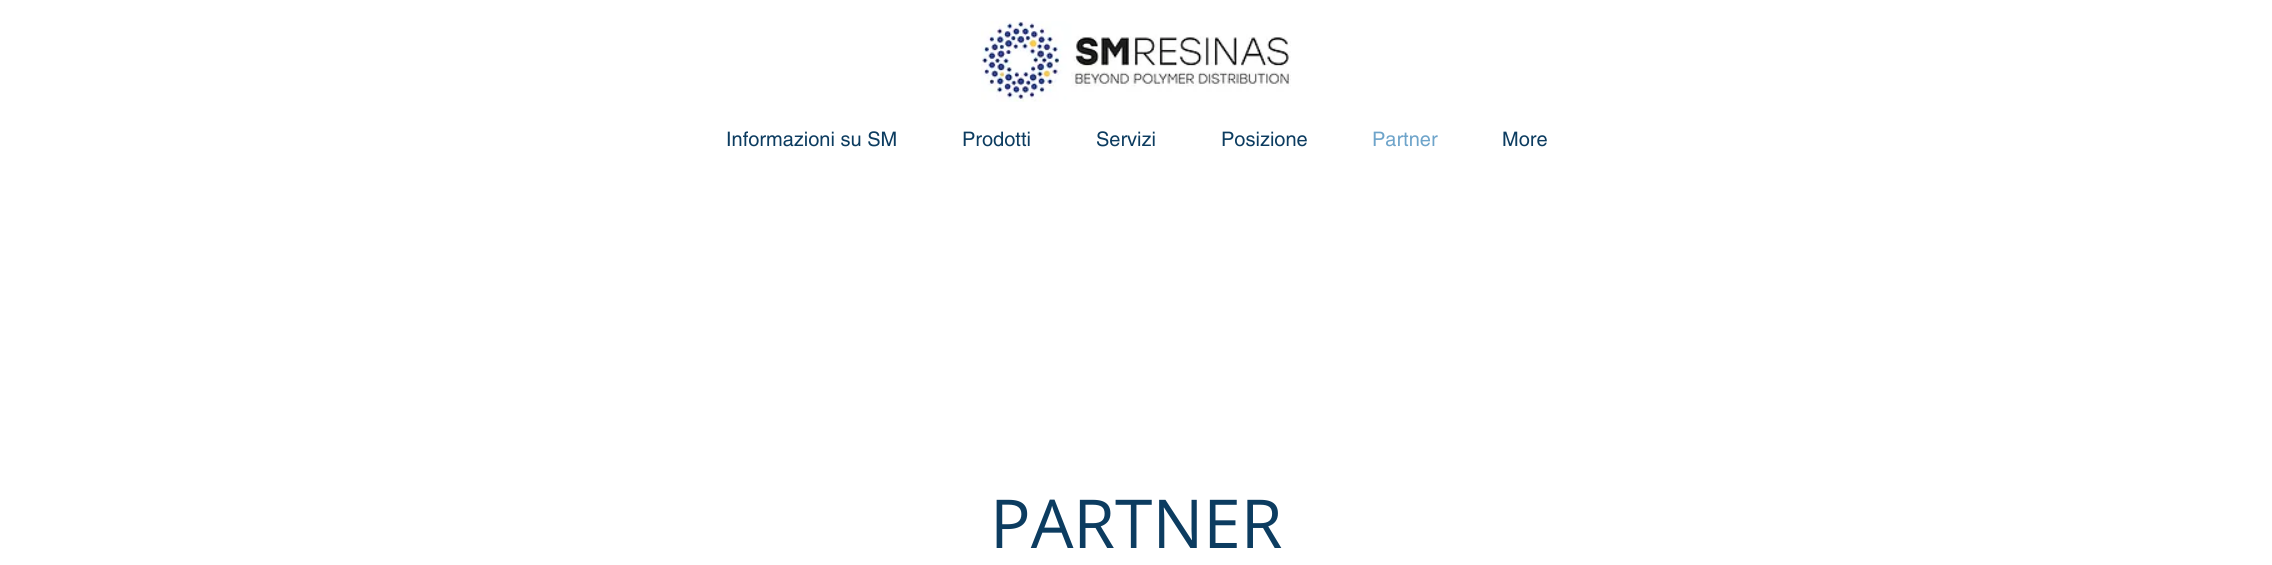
#include <cairo.h>
#include <math.h>
#include <stddef.h>


static void rgb(cairo_t *cr, int r, int g, int b)
{
	cairo_set_source_rgb(cr, r / 255.0, g / 255.0, b / 255.0);
}

static void face(cairo_t *cr, const char *family, double size, int italic, int bold)
{
	cairo_select_font_face(cr, family, italic ? CAIRO_FONT_SLANT_ITALIC : CAIRO_FONT_SLANT_NORMAL,
		bold ? CAIRO_FONT_WEIGHT_BOLD : CAIRO_FONT_WEIGHT_NORMAL);
	cairo_set_font_size(cr, size);
}

static void label(cairo_t *cr, double x, double y, const char *s)
{
	cairo_move_to(cr, x, y);
	cairo_show_text(cr, s);
}

static void image(cairo_t *cr, const char *path, double x, double y, double w, double h)
{
	cairo_surface_t *image = cairo_image_surface_create_from_png(path);
	cairo_save(cr);
	cairo_set_source_surface(cr, image, x, y);
	cairo_rectangle(cr, x, y, w, h);
	cairo_fill(cr);
	cairo_restore(cr);
	cairo_surface_destroy(image);
}

static void draw(cairo_t *cr) {
	rgb(cr, 255, 255, 255);
	cairo_paint(cr);
	image(cr, "image0.png", 981, 21, 310, 81);
	face(cr, "helvetica", 20, 0, 0);
	rgb(cr, 12, 60, 96);
	label(cr, 726, 146, "Informazioni su SM");
	label(cr, 962, 146, "Prodotti");
	label(cr, 1096, 146, "Servizi");
	label(cr, 1221, 146, "Posizione");
	rgb(cr, 110, 164, 202);
	label(cr, 1372, 146, "Partner");
	rgb(cr, 12, 60, 96);
	label(cr, 1502, 146, "More");
	face(cr, "Open Sans", 67.5, 0, 0);
	label(cr, 990, 548, "PARTNER");
}

int main(void) {
	cairo_surface_t *surface = cairo_image_surface_create(CAIRO_FORMAT_RGB24, 2272, 565);
	cairo_t *cr = cairo_create(surface);
	cairo_font_options_t *options = cairo_font_options_create();
	cairo_font_options_set_hint_metrics(options, CAIRO_HINT_METRICS_OFF);
	cairo_font_options_set_hint_style(options, CAIRO_HINT_STYLE_NONE);
	cairo_set_font_options(cr, options);
	cairo_set_miter_limit(cr, 4);
	draw(cr);
	cairo_surface_write_to_png(surface, "render.png");
	cairo_font_options_destroy(options);
	cairo_destroy(cr);
	cairo_surface_destroy(surface);
	return 0;
}
